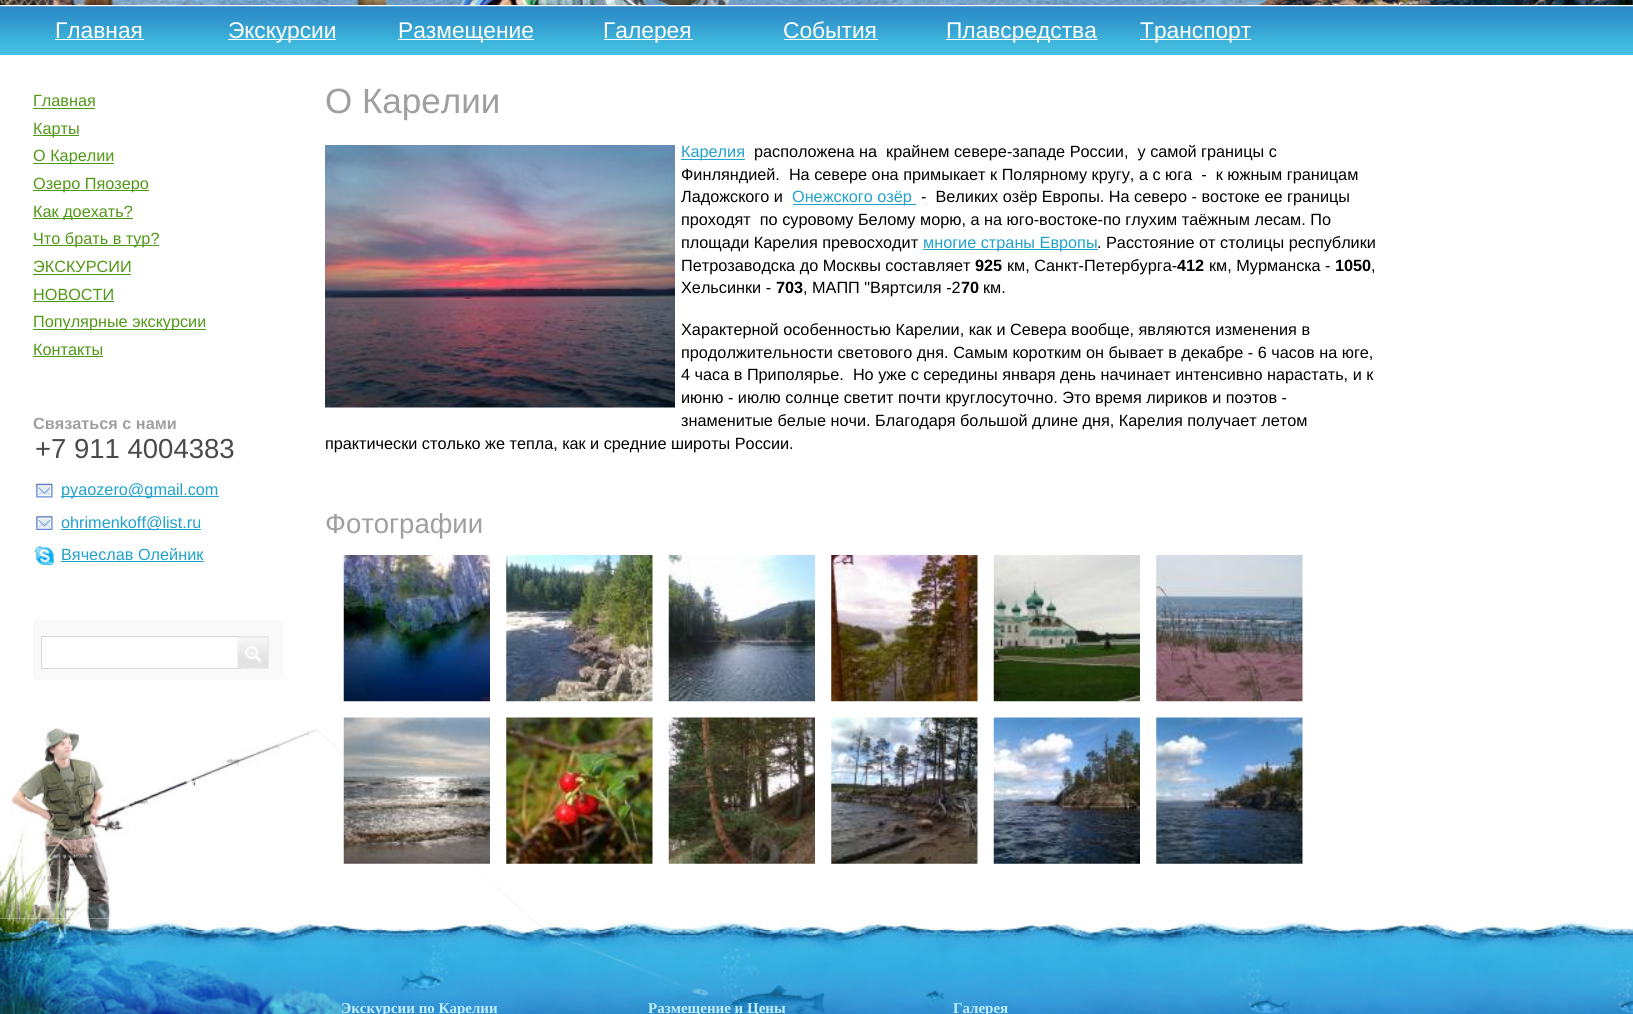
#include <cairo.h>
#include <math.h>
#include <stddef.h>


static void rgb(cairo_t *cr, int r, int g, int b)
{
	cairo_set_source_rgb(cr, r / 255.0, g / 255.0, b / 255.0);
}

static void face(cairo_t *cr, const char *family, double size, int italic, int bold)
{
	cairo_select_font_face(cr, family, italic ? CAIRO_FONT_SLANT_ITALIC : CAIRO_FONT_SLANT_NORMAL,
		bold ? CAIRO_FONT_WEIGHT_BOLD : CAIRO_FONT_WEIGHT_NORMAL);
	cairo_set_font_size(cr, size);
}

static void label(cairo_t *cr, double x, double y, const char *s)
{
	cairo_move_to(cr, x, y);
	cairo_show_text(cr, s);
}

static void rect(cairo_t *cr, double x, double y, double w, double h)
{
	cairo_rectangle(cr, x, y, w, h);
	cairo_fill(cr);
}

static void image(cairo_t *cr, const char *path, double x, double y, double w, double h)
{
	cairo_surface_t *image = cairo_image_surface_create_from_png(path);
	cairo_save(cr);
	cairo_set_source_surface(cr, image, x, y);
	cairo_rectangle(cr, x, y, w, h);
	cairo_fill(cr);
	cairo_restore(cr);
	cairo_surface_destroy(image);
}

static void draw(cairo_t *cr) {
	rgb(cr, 255, 255, 255);
	cairo_paint(cr);
	image(cr, "image0.png", 0, 726, 532, 193);
	image(cr, "image1.png", 752, 0, 392, 5);
	image(cr, "image2.png", 0, 0, 753, 5);
	image(cr, "image3.png", 1144, 0, 489, 5);
	image(cr, "image4.png", 0, 6, 1633, 49);
	face(cr, "Liberation Sans", 22.75, 0, 0);
	rgb(cr, 255, 255, 255);
	label(cr, 55, 38, "Главная");
	rect(cr, 55, 39, 89, 1);
	rect(cr, 228, 39, 108, 1);
	label(cr, 228, 38, "Экскурсии");
	rect(cr, 398, 39, 136, 1);
	label(cr, 398, 38, "Размещение");
	rect(cr, 604, 39, 89, 1);
	label(cr, 603, 38, "Галерея");
	label(cr, 783, 38, "События");
	rect(cr, 784, 39, 94, 1);
	rect(cr, 946, 39, 152, 1);
	label(cr, 946, 38, "Плавсредства");
	rect(cr, 1140, 39, 111, 1);
	label(cr, 1140, 38, "Транспорт");
	face(cr, "Liberation Sans", 16.25, 0, 0);
	rgb(cr, 81, 152, 23);
	label(cr, 33, 106, "Главная");
	rect(cr, 33, 108, 62, 1);
	rect(cr, 33, 135, 46, 1);
	label(cr, 33, 134, "Карты");
	rect(cr, 33, 163, 81, 1);
	label(cr, 33, 161, "О Карелии");
	rect(cr, 33, 190, 116, 1);
	label(cr, 33, 189, "Озеро Пяозеро");
	rect(cr, 33, 218, 100, 1);
	label(cr, 33, 217, "Как доехать?");
	rect(cr, 33, 245, 126, 1);
	label(cr, 33, 244, "Что брать в тур?");
	label(cr, 33, 272, "ЭКСКУРСИИ");
	rect(cr, 33, 274, 98, 1);
	label(cr, 33, 300, "НОВОСТИ");
	rect(cr, 33, 301, 81, 1);
	rect(cr, 33, 329, 173, 1);
	label(cr, 33, 327, "Популярные экскурсии");
	label(cr, 33, 355, "Контакты");
	rect(cr, 33, 356, 70, 1);
	face(cr, "Liberation Sans", 16.25, 0, 1);
	rgb(cr, 159, 159, 159);
	label(cr, 33, 429, "Связаться с нами");
	face(cr, "Liberation Sans", 27.5, 0, 0);
	rgb(cr, 73, 74, 74);
	label(cr, 35, 458, "+7 911 4004383");
	image(cr, "image5.png", 36, 483, 17, 15);
	rgb(cr, 32, 162, 205);
	rect(cr, 61, 496, 158, 1);
	face(cr, "Liberation Sans", 16.25, 0, 0);
	label(cr, 61, 495, "pyaozero@gmail.com");
	image(cr, "image6.png", 36, 516, 17, 14);
	rect(cr, 61, 529, 140, 1);
	label(cr, 61, 528, "ohrimenkoff@list.ru");
	image(cr, "image7.png", 35, 546, 19, 19);
	label(cr, 61, 560, "Вячеслав Олейник");
	rect(cr, 61, 561, 143, 1);
	rgb(cr, 249, 249, 249);
	rect(cr, 33, 620, 250, 60);
	rgb(cr, 254, 254, 254);
	rect(cr, 33, 620, 2, 2);
	rect(cr, 280, 620, 2, 2);
	rect(cr, 33, 678, 2, 2);
	rect(cr, 280, 678, 2, 2);
	rgb(cr, 255, 255, 255);
	rect(cr, 42, 637, 196, 31);
	cairo_rectangle(cr, 41.5, 636.5, 199, 32);
	rgb(cr, 215, 215, 215);
	cairo_set_line_width(cr, 1);
	cairo_stroke(cr);
	image(cr, "image8.png", 237, 636, 32, 33);
	face(cr, "Liberation Sans", 35, 0, 0);
	rgb(cr, 159, 159, 159);
	label(cr, 325, 113, "О Карелии");
	image(cr, "image9.png", 325, 145, 350, 263);
	rgb(cr, 32, 162, 205);
	rect(cr, 681, 159, 64, 1);
	face(cr, "Liberation Sans", 16.25, 0, 0);
	label(cr, 681, 157, "Карелия");
	rgb(cr, 0, 0, 0);
	label(cr, 754, 157, "расположена на  крайнем севере-западе России,  у самой границы с");
	label(cr, 681, 180, "Финляндией.  На севере она примыкает к Полярному кругу, а с юга  -  к южным границам");
	label(cr, 681, 202, "Ладожского и");
	rgb(cr, 32, 162, 205);
	rect(cr, 793, 204, 123, 1);
	label(cr, 792, 202, "Онежского озёр");
	rgb(cr, 0, 0, 0);
	label(cr, 921, 202, "-  Великих озёр Европы. На северо - востоке ее границы");
	label(cr, 681, 225, "проходят  по суровому Белому морю, а на юго-востоке-по глухим таёжным лесам. По");
	label(cr, 681, 248, "площади Карелия превосходит");
	rgb(cr, 32, 162, 205);
	rect(cr, 923, 249, 175, 1);
	label(cr, 923, 248, "многие страны Европы");
	rgb(cr, 0, 0, 0);
	label(cr, 1097, 248, ". Расстояние от столицы республики");
	label(cr, 681, 271, "Петрозаводска до Москвы составляет");
	face(cr, "Liberation Sans", 16.25, 0, 1);
	label(cr, 975, 271, "925");
	face(cr, "Liberation Sans", 16.25, 0, 0);
	label(cr, 1007, 271, "км, Санкт-Петербурга-");
	face(cr, "Liberation Sans", 16.25, 0, 1);
	label(cr, 1177, 271, "412");
	face(cr, "Liberation Sans", 16.25, 0, 0);
	label(cr, 1209, 271, "км, Мурманска -");
	face(cr, "Liberation Sans", 16.25, 0, 1);
	label(cr, 1335, 271, "1050");
	face(cr, "Liberation Sans", 16.25, 0, 0);
	label(cr, 1371, 271, ",");
	label(cr, 681, 293, "Хельсинки -");
	face(cr, "Liberation Sans", 16.25, 0, 1);
	label(cr, 776, 293, "703");
	face(cr, "Liberation Sans", 16.25, 0, 0);
	label(cr, 803, 293, ", МАПП \"Вяртсиля -2");
	face(cr, "Liberation Sans", 16.25, 0, 1);
	label(cr, 961, 293, "70");
	face(cr, "Liberation Sans", 16.25, 0, 0);
	label(cr, 983, 293, "км.");
	label(cr, 681, 335, "Характерной особенностью Карелии, как и Севера вообще, являются изменения в");
	label(cr, 681, 358, "продолжительности светового дня. Самым коротким он бывает в декабре - 6 часов на юге,");
	label(cr, 681, 380, "4 часа в Приполярье.  Но уже с середины января день начинает интенсивно нарастать, и к");
	label(cr, 681, 403, "июню - июлю солнце светит почти круглосуточно. Это время лириков и поэтов -");
	label(cr, 681, 426, "знаменитые белые ночи. Благодаря большой длине дня, Карелия получает летом");
	label(cr, 325, 449, "практически столько же тепла, как и средние широты России.");
	face(cr, "Liberation Sans", 27.5, 0, 0);
	rgb(cr, 159, 159, 159);
	label(cr, 325, 533, "Фотографии");
	image(cr, "image10.png", 343, 555, 147, 147);
	image(cr, "image11.png", 506, 555, 147, 147);
	image(cr, "image12.png", 668, 555, 147, 147);
	image(cr, "image13.png", 831, 555, 147, 147);
	image(cr, "image14.png", 993, 555, 147, 147);
	image(cr, "image15.png", 1156, 555, 147, 147);
	image(cr, "image16.png", 343, 717, 147, 147);
	image(cr, "image17.png", 506, 717, 147, 147);
	image(cr, "image18.png", 668, 717, 147, 147);
	image(cr, "image19.png", 831, 717, 147, 147);
	image(cr, "image20.png", 993, 717, 147, 147);
	image(cr, "image21.png", 1156, 717, 147, 147);
	image(cr, "image22.png", 0, 918, 1633, 96);
	image(cr, "image23.png", 0, 918, 968, 96);
	face(cr, "Liberation Serif", 15, 0, 1);
	rgb(cr, 190, 239, 255);
	label(cr, 341, 1013, "Экскурсии по Карелии");
	label(cr, 648, 1013, "Размещение и Цены");
	label(cr, 953, 1013, "Галерея");
}

int main(void) {
	cairo_surface_t *surface = cairo_image_surface_create(CAIRO_FORMAT_RGB24, 1633, 1014);
	cairo_t *cr = cairo_create(surface);
	cairo_font_options_t *options = cairo_font_options_create();
	cairo_font_options_set_hint_metrics(options, CAIRO_HINT_METRICS_OFF);
	cairo_font_options_set_hint_style(options, CAIRO_HINT_STYLE_NONE);
	cairo_set_font_options(cr, options);
	cairo_set_miter_limit(cr, 4);
	draw(cr);
	cairo_surface_write_to_png(surface, "render.png");
	cairo_font_options_destroy(options);
	cairo_destroy(cr);
	cairo_surface_destroy(surface);
	return 0;
}
